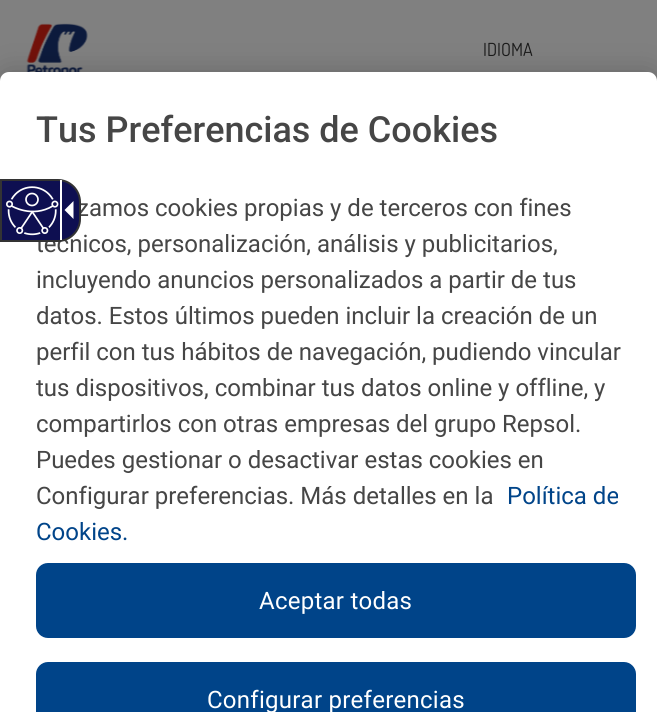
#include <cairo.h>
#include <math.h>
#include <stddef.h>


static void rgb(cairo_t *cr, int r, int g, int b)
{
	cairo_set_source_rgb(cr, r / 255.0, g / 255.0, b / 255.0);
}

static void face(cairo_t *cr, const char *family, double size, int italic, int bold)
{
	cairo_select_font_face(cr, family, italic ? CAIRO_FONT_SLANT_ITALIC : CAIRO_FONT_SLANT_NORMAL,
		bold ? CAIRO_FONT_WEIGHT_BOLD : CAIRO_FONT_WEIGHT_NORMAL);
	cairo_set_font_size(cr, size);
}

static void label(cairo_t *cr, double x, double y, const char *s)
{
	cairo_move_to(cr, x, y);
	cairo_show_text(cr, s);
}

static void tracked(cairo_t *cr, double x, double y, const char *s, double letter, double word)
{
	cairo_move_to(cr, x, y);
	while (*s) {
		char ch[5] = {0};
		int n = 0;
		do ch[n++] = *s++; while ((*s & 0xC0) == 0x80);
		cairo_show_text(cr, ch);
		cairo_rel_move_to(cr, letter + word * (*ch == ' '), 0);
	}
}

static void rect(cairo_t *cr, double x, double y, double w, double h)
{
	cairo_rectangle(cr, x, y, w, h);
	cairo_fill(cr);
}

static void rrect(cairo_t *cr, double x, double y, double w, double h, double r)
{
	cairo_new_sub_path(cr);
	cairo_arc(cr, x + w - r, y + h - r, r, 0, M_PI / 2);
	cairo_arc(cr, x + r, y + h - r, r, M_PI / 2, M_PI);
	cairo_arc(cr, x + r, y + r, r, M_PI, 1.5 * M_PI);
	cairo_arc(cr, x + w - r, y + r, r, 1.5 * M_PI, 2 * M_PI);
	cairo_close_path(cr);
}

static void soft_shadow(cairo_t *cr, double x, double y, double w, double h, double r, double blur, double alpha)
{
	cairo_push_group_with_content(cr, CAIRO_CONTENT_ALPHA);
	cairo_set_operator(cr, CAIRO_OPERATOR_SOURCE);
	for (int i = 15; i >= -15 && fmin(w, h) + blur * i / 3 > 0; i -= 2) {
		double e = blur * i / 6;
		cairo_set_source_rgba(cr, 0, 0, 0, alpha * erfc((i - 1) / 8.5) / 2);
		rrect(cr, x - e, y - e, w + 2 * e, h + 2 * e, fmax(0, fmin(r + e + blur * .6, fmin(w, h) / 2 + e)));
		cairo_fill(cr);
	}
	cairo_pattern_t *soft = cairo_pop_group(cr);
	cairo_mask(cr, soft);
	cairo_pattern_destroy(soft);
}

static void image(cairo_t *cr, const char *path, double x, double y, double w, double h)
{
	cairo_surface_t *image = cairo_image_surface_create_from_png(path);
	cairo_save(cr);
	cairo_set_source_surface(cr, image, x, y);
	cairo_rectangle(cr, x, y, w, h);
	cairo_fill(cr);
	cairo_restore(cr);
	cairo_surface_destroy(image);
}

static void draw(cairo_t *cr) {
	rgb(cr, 128, 128, 128);
	cairo_paint(cr);
	image(cr, "image0.png", 26, 23, 62, 49);
	face(cr, "Dosis", 18, 0, 0);
	rgb(cr, 26, 26, 26);
	label(cr, 483, 56, "IDIOMA");
	rgb(cr, 0, 0, 0);
	soft_shadow(cr, 0, 72, 657, 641, 9, 13.5, 0.2);
	rgb(cr, 255, 255, 255);
	cairo_new_path(cr);
	cairo_move_to(cr, 9, 72);
	cairo_line_to(cr, 648, 72);
	cairo_curve_to(cr, 653, 72, 657, 76, 657, 81);
	cairo_line_to(cr, 657, 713);
	cairo_line_to(cr, 0, 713);
	cairo_line_to(cr, 0, 81);
	cairo_curve_to(cr, 0, 76, 4, 72, 9, 72);
	cairo_close_path(cr);
	cairo_fill(cr);
	face(cr, "Roboto Medium", 36, 0, 0);
	rgb(cr, 70, 70, 70);
	label(cr, 36, 142, "Tus Preferencias de Cookies");
	face(cr, "Roboto", 24, 0, 0);
	label(cr, 77, 216, "zamos cookies propias y de terceros con fines");
	label(cr, 36, 252, "técnicos, personalización, análisis y publicitarios,");
	label(cr, 36, 288, "incluyendo anuncios personalizados a partir de tus");
	label(cr, 36, 324, "datos. Estos últimos pueden incluir la creación de un");
	label(cr, 36, 360, "perfil con tus hábitos de navegación, pudiendo vincular");
	label(cr, 36, 396, "tus dispositivos, combinar tus datos online y offline, y");
	label(cr, 36, 432, "compartirlos con otras empresas del grupo Repsol.");
	label(cr, 36, 468, "Puedes gestionar o desactivar estas cookies en");
	label(cr, 36, 504, "Configurar preferencias. Más detalles en la");
	rgb(cr, 0, 68, 137);
	label(cr, 507, 504, "Política de");
	label(cr, 36, 540, "Cookies.");
	rrect(cr, 36, 563, 600, 75, 12);
	cairo_fill(cr);
	rgb(cr, 255, 255, 255);
	tracked(cr, 259, 609, "Aceptar todas", 0.25, 0);
	rgb(cr, 0, 68, 137);
	cairo_new_path(cr);
	cairo_move_to(cr, 48, 662);
	cairo_line_to(cr, 624, 662);
	cairo_curve_to(cr, 630.5, 662, 636, 667.5, 636, 674);
	cairo_line_to(cr, 636, 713);
	cairo_line_to(cr, 36, 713);
	cairo_line_to(cr, 36, 674);
	cairo_curve_to(cr, 36, 667.5, 41.5, 662, 48, 662);
	cairo_close_path(cr);
	cairo_fill(cr);
	rgb(cr, 255, 255, 255);
	tracked(cr, 207, 708, "Configurar preferencias", 0.25, 0);
	rgb(cr, 14, 15, 81);
	cairo_new_path(cr);
	cairo_move_to(cr, 1, 180);
	cairo_line_to(cr, 58, 180);
	cairo_curve_to(cr, 70, 180, 80, 190, 80, 202);
	cairo_line_to(cr, 80, 219);
	cairo_curve_to(cr, 80, 231, 70, 241, 58, 241);
	cairo_line_to(cr, 1, 241);
	cairo_close_path(cr);
	cairo_fill_preserve(cr);
	rgb(cr, 51, 51, 51);
	cairo_stroke(cr);
	rgb(cr, 255, 255, 255);
	rect(cr, 60, 180, 2, 60);
	image(cr, "image1.png", 6, 186, 53, 50);
	cairo_new_path(cr);
	cairo_move_to(cr, 73.5, 201);
	cairo_line_to(cr, 73.5, 219);
	cairo_line_to(cr, 64.5, 210);
	cairo_close_path(cr);
	cairo_fill(cr);
}

int main(void) {
	cairo_surface_t *surface = cairo_image_surface_create(CAIRO_FORMAT_RGB24, 657, 712);
	cairo_t *cr = cairo_create(surface);
	cairo_font_options_t *options = cairo_font_options_create();
	cairo_font_options_set_hint_metrics(options, CAIRO_HINT_METRICS_OFF);
	cairo_font_options_set_hint_style(options, CAIRO_HINT_STYLE_NONE);
	cairo_set_font_options(cr, options);
	cairo_set_miter_limit(cr, 4);
	draw(cr);
	cairo_surface_write_to_png(surface, "render.png");
	cairo_font_options_destroy(options);
	cairo_destroy(cr);
	cairo_surface_destroy(surface);
	return 0;
}
